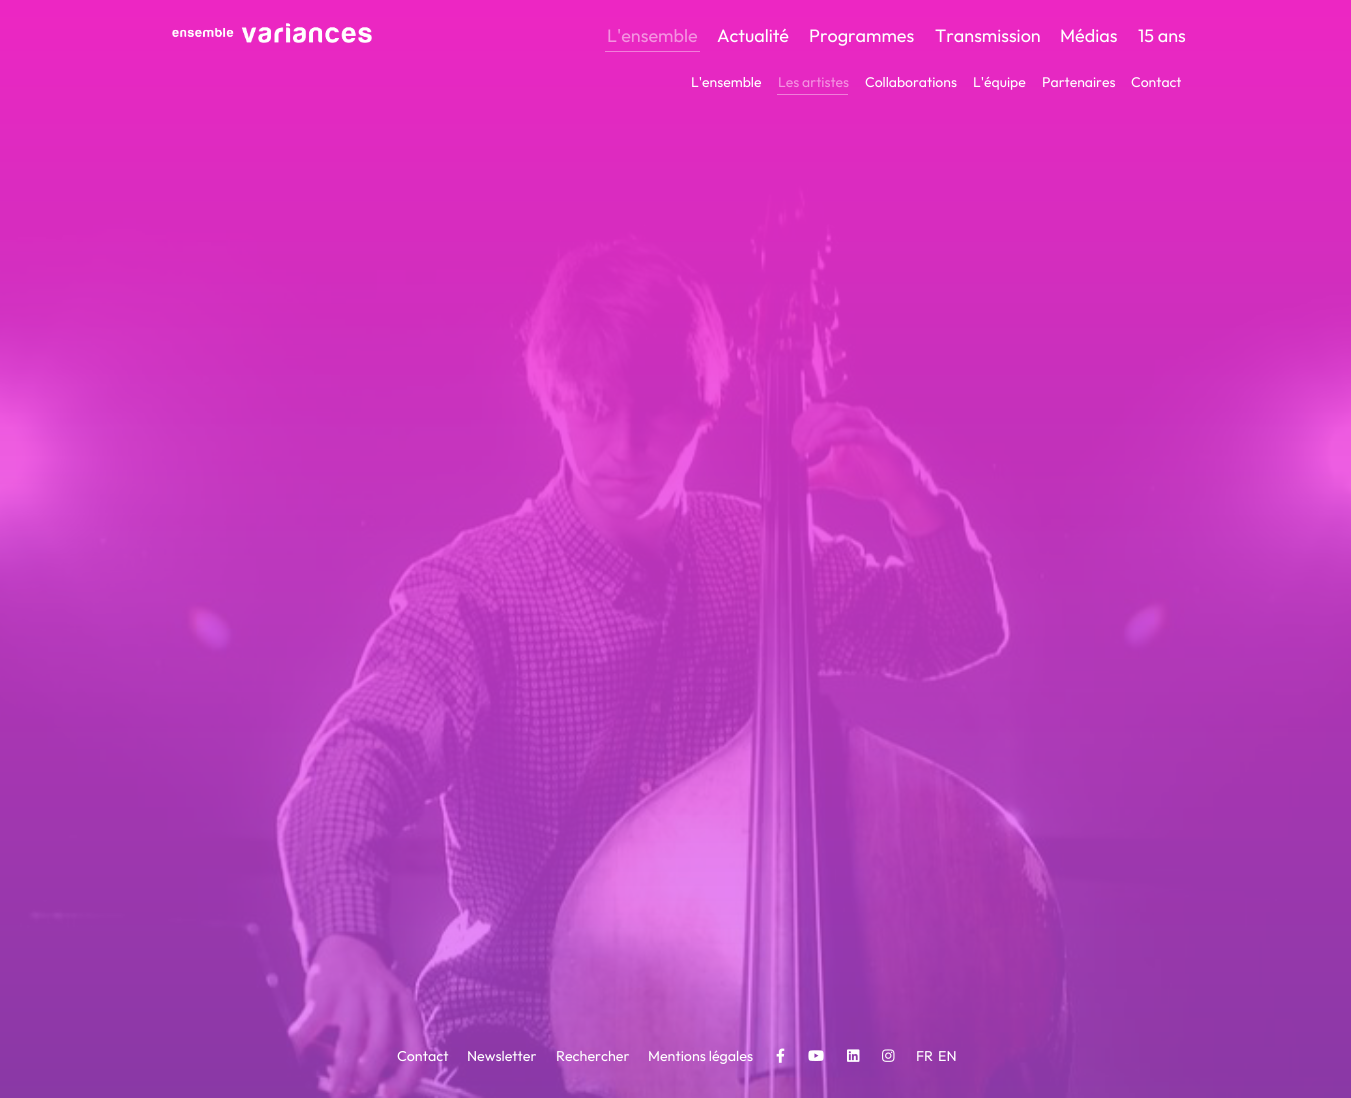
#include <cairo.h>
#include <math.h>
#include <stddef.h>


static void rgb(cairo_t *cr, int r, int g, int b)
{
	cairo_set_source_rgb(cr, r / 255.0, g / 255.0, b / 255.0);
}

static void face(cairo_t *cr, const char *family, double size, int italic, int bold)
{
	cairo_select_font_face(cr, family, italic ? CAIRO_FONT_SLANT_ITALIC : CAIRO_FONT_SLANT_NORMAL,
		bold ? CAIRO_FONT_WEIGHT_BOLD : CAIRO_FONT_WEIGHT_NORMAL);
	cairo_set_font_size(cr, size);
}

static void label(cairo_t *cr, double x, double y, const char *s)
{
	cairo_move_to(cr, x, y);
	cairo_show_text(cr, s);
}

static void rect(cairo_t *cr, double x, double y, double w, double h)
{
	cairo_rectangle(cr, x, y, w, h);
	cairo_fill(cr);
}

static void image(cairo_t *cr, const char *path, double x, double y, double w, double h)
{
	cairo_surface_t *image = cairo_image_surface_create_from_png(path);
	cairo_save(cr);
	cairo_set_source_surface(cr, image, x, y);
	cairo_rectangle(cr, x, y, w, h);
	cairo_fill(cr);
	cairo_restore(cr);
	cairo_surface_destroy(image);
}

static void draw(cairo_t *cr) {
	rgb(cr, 255, 255, 255);
	cairo_paint(cr);
	image(cr, "image0.png", 0, 0, 1351, 1098);
	image(cr, "image1.png", 172, 23, 200, 20);
	face(cr, "Outfit", 18, 0, 0);
	rgb(cr, 244, 147, 225);
	label(cr, 607, 42, "L'ensemble");
	rgb(cr, 242, 126, 219);
	rect(cr, 605, 51, 95, 1);
	rgb(cr, 255, 255, 255);
	label(cr, 717, 42, "Actualité");
	label(cr, 809, 42, "Programmes");
	label(cr, 935, 42, "Transmission");
	label(cr, 1060, 42, "Médias");
	label(cr, 1138, 42, "15 ans");
	face(cr, "Outfit", 14, 0, 0);
	label(cr, 691, 87, "L'ensemble");
	rgb(cr, 244, 147, 225);
	label(cr, 778, 87, "Les artistes");
	rgb(cr, 239, 127, 218);
	rect(cr, 777, 94, 71, 1);
	rgb(cr, 255, 255, 255);
	label(cr, 865, 87, "Collaborations");
	label(cr, 973, 87, "L'équipe");
	label(cr, 1042, 87, "Partenaires");
	label(cr, 1131, 87, "Contact");
	face(cr, "Outfit", 14.25, 0, 0);
	label(cr, 397, 1061, "Contact");
	label(cr, 467, 1061, "Newsletter");
	label(cr, 556, 1061, "Rechercher");
	label(cr, 648, 1061, "Mentions légales");
	image(cr, "image2.png", 776, 1048, 9, 15);
	image(cr, "image3.png", 808, 1050, 16, 11);
	image(cr, "image4.png", 847, 1049, 13, 13);
	image(cr, "image5.png", 882, 1049, 13, 13);
	label(cr, 916, 1061, "FR");
	label(cr, 938, 1061, "EN");
}

int main(void) {
	cairo_surface_t *surface = cairo_image_surface_create(CAIRO_FORMAT_RGB24, 1351, 1098);
	cairo_t *cr = cairo_create(surface);
	cairo_font_options_t *options = cairo_font_options_create();
	cairo_font_options_set_hint_metrics(options, CAIRO_HINT_METRICS_OFF);
	cairo_font_options_set_hint_style(options, CAIRO_HINT_STYLE_NONE);
	cairo_set_font_options(cr, options);
	cairo_set_miter_limit(cr, 4);
	draw(cr);
	cairo_surface_write_to_png(surface, "render.png");
	cairo_font_options_destroy(options);
	cairo_destroy(cr);
	cairo_surface_destroy(surface);
	return 0;
}
